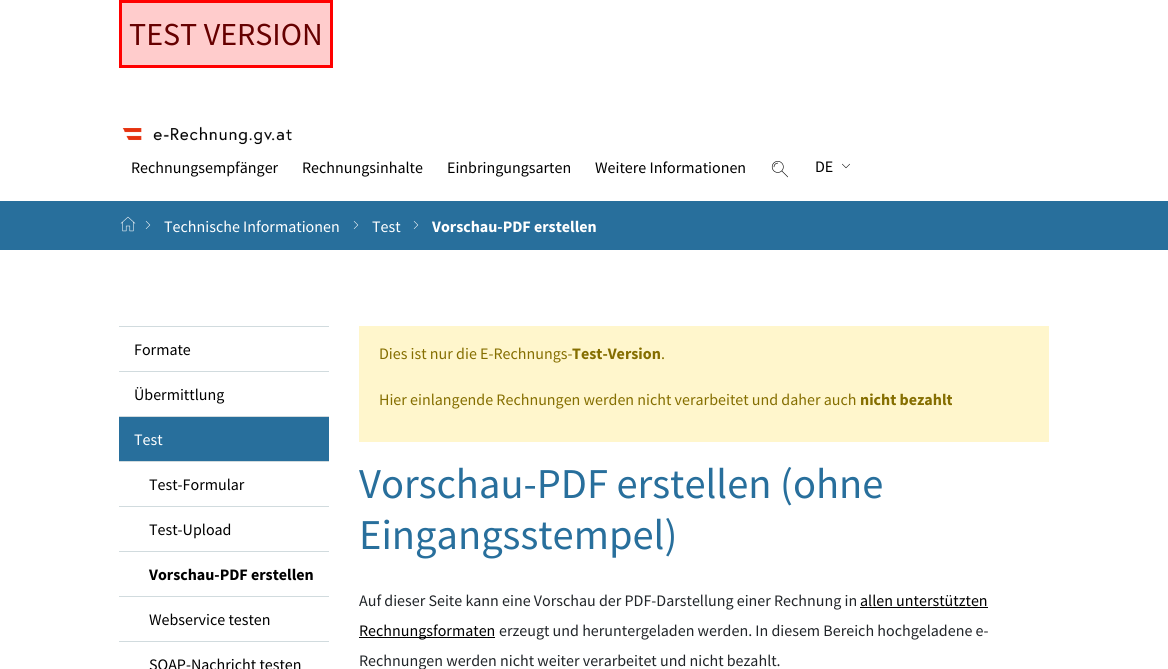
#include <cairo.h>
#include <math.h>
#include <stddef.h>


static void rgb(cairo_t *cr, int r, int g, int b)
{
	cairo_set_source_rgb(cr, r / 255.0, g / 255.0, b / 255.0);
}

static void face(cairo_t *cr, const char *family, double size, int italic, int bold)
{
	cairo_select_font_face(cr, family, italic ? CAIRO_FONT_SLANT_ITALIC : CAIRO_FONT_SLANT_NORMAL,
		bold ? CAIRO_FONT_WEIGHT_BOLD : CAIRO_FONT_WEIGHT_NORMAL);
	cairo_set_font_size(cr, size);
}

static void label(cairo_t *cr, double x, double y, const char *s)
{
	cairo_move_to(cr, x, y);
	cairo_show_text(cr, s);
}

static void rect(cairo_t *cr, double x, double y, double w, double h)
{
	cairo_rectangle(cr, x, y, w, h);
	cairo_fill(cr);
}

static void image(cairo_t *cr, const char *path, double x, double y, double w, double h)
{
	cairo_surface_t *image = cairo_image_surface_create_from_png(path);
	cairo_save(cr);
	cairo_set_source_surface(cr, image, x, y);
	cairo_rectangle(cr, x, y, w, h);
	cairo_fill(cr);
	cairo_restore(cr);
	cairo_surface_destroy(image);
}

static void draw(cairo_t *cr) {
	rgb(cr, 255, 255, 255);
	cairo_paint(cr);
	rgb(cr, 255, 204, 204);
	cairo_rectangle(cr, 120.5, 1.5, 211, 65);
	cairo_fill_preserve(cr);
	rgb(cr, 255, 0, 0);
	cairo_set_line_width(cr, 3);
	cairo_stroke(cr);
	face(cr, "Source Sans Pro", 32, 0, 0);
	rgb(cr, 102, 0, 0);
	label(cr, 129, 45, "TEST VERSION");
	image(cr, "image0.png", 122, 126, 170, 19);
	face(cr, "Source Sans Pro", 16, 0, 0);
	rgb(cr, 0, 0, 0);
	label(cr, 131, 173, "Rechnungsempfänger");
	label(cr, 302, 173, "Rechnungsinhalte");
	label(cr, 447, 173, "Einbringungsarten");
	label(cr, 595, 173, "Weitere Informationen");
	image(cr, "image1.png", 771, 161, 17, 17);
	label(cr, 815, 172, "DE");
	image(cr, "image2.png", 842, 163, 8, 6);
	rgb(cr, 40, 111, 156);
	rect(cr, 0, 201, 1168, 49);
	image(cr, "image3.png", 120, 216, 16, 16);
	image(cr, "image4.png", 145, 221, 6, 8);
	rgb(cr, 255, 255, 255);
	label(cr, 164, 232, "Technische Informationen");
	image(cr, "image4.png", 353, 221, 6, 8);
	label(cr, 372, 232, "Test");
	image(cr, "image4.png", 413, 221, 6, 8);
	face(cr, "Source Sans Pro", 16, 0, 1);
	label(cr, 432, 232, "Vorschau-PDF erstellen");
	rgb(cr, 209, 219, 222);
	rect(cr, 119, 326, 210, 1);
	rect(cr, 119, 371, 210, 1);
	face(cr, "Source Sans Pro", 16, 0, 0);
	rgb(cr, 0, 0, 0);
	label(cr, 134, 355, "Formate");
	rgb(cr, 209, 219, 222);
	rect(cr, 119, 416, 210, 1);
	rgb(cr, 0, 0, 0);
	label(cr, 134, 400, "Übermittlung");
	rgb(cr, 40, 111, 156);
	rect(cr, 119, 417, 210, 44);
	rgb(cr, 209, 219, 222);
	rect(cr, 119, 461, 210, 1);
	rgb(cr, 255, 255, 255);
	label(cr, 134, 445, "Test");
	rgb(cr, 209, 219, 222);
	rect(cr, 119, 506, 210, 1);
	rgb(cr, 0, 0, 0);
	label(cr, 149, 490, "Test-Formular");
	rgb(cr, 209, 219, 222);
	rect(cr, 119, 551, 210, 1);
	rgb(cr, 0, 0, 0);
	label(cr, 149, 535, "Test-Upload");
	rgb(cr, 209, 219, 222);
	rect(cr, 119, 596, 210, 1);
	face(cr, "Source Sans Pro", 16, 0, 1);
	rgb(cr, 0, 0, 0);
	label(cr, 149, 580, "Vorschau-PDF erstellen");
	rgb(cr, 209, 219, 222);
	rect(cr, 119, 641, 210, 1);
	face(cr, "Source Sans Pro", 16, 0, 0);
	rgb(cr, 0, 0, 0);
	label(cr, 149, 625, "Webservice testen");
	label(cr, 149, 670, "SOAP-Nachricht testen");
	rgb(cr, 255, 246, 204);
	rect(cr, 359, 326, 690, 116);
	rgb(cr, 133, 110, 0);
	label(cr, 379, 359, "Dies ist nur die E-Rechnungs-");
	face(cr, "Source Sans Pro", 16, 0, 1);
	label(cr, 572, 359, "Test-Version");
	face(cr, "Source Sans Pro", 16, 0, 0);
	label(cr, 661, 359, ".");
	label(cr, 379, 405, "Hier einlangende Rechnungen werden nicht verarbeitet und daher auch");
	face(cr, "Source Sans Pro", 16, 0, 1);
	label(cr, 860, 405, "nicht bezahlt");
	face(cr, "Source Sans Pro", 42.5, 0, 0);
	rgb(cr, 40, 111, 156);
	label(cr, 359, 498, "Vorschau-PDF erstellen (ohne");
	label(cr, 359, 549, "Eingangsstempel)");
	face(cr, "Source Sans Pro", 16, 0, 0);
	rgb(cr, 33, 37, 41);
	label(cr, 359, 606, "Auf dieser Seite kann eine Vorschau der PDF-Darstellung einer Rechnung in");
	rgb(cr, 0, 0, 0);
	label(cr, 860, 606, "allen unterstützten");
	rect(cr, 860, 607, 128, 1);
	rect(cr, 359, 637, 136, 1);
	label(cr, 359, 636, "Rechnungsformaten");
	rgb(cr, 33, 37, 41);
	label(cr, 499, 636, "erzeugt und heruntergeladen werden. In diesem Bereich hochgeladene e-");
	label(cr, 359, 666, "Rechnungen werden nicht weiter verarbeitet und nicht bezahlt.");
}

int main(void) {
	cairo_surface_t *surface = cairo_image_surface_create(CAIRO_FORMAT_RGB24, 1168, 669);
	cairo_t *cr = cairo_create(surface);
	cairo_font_options_t *options = cairo_font_options_create();
	cairo_font_options_set_hint_metrics(options, CAIRO_HINT_METRICS_OFF);
	cairo_font_options_set_hint_style(options, CAIRO_HINT_STYLE_NONE);
	cairo_set_font_options(cr, options);
	cairo_set_miter_limit(cr, 4);
	draw(cr);
	cairo_surface_write_to_png(surface, "render.png");
	cairo_font_options_destroy(options);
	cairo_destroy(cr);
	cairo_surface_destroy(surface);
	return 0;
}
